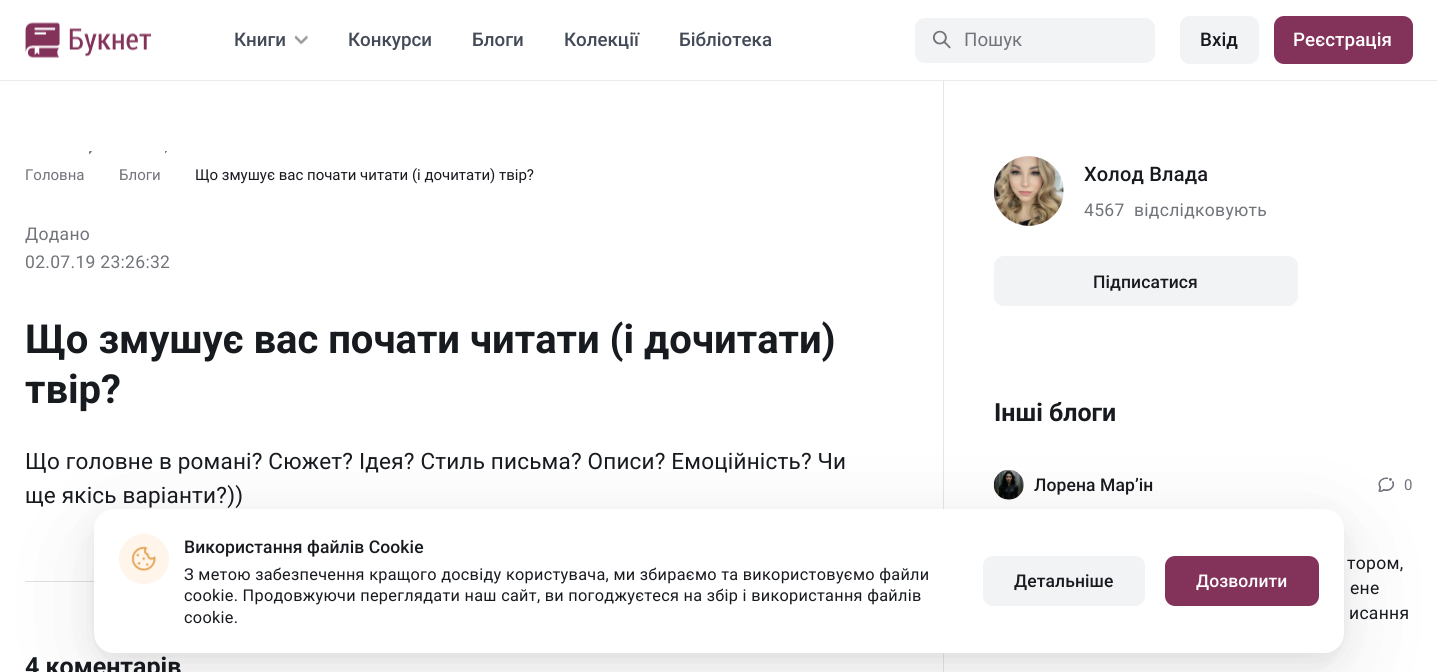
#include <cairo.h>
#include <math.h>
#include <stddef.h>


static void rgb(cairo_t *cr, int r, int g, int b)
{
	cairo_set_source_rgb(cr, r / 255.0, g / 255.0, b / 255.0);
}

static void face(cairo_t *cr, const char *family, double size, int italic, int bold)
{
	cairo_select_font_face(cr, family, italic ? CAIRO_FONT_SLANT_ITALIC : CAIRO_FONT_SLANT_NORMAL,
		bold ? CAIRO_FONT_WEIGHT_BOLD : CAIRO_FONT_WEIGHT_NORMAL);
	cairo_set_font_size(cr, size);
}

static void label(cairo_t *cr, double x, double y, const char *s)
{
	cairo_move_to(cr, x, y);
	cairo_show_text(cr, s);
}

static void tracked(cairo_t *cr, double x, double y, const char *s, double letter, double word)
{
	cairo_move_to(cr, x, y);
	while (*s) {
		char ch[5] = {0};
		int n = 0;
		do ch[n++] = *s++; while ((*s & 0xC0) == 0x80);
		cairo_show_text(cr, ch);
		cairo_rel_move_to(cr, letter + word * (*ch == ' '), 0);
	}
}

static void rect(cairo_t *cr, double x, double y, double w, double h)
{
	cairo_rectangle(cr, x, y, w, h);
	cairo_fill(cr);
}

static void rrect(cairo_t *cr, double x, double y, double w, double h, double r)
{
	cairo_new_sub_path(cr);
	cairo_arc(cr, x + w - r, y + h - r, r, 0, M_PI / 2);
	cairo_arc(cr, x + r, y + h - r, r, M_PI / 2, M_PI);
	cairo_arc(cr, x + r, y + r, r, M_PI, 1.5 * M_PI);
	cairo_arc(cr, x + w - r, y + r, r, 1.5 * M_PI, 2 * M_PI);
	cairo_close_path(cr);
}

static void soft_shadow(cairo_t *cr, double x, double y, double w, double h, double r, double blur, double alpha)
{
	cairo_push_group_with_content(cr, CAIRO_CONTENT_ALPHA);
	cairo_set_operator(cr, CAIRO_OPERATOR_SOURCE);
	for (int i = 15; i >= -15 && fmin(w, h) + blur * i / 3 > 0; i -= 2) {
		double e = blur * i / 6;
		cairo_set_source_rgba(cr, 0, 0, 0, alpha * erfc((i - 1) / 8.5) / 2);
		rrect(cr, x - e, y - e, w + 2 * e, h + 2 * e, fmax(0, fmin(r + e + blur * .6, fmin(w, h) / 2 + e)));
		cairo_fill(cr);
	}
	cairo_pattern_t *soft = cairo_pop_group(cr);
	cairo_mask(cr, soft);
	cairo_pattern_destroy(soft);
}

static void image(cairo_t *cr, const char *path, double x, double y, double w, double h)
{
	cairo_surface_t *image = cairo_image_surface_create_from_png(path);
	cairo_save(cr);
	cairo_set_source_surface(cr, image, x, y);
	cairo_rectangle(cr, x, y, w, h);
	cairo_fill(cr);
	cairo_restore(cr);
	cairo_surface_destroy(image);
}

static void draw(cairo_t *cr) {
	rgb(cr, 255, 255, 255);
	cairo_paint(cr);
	rgb(cr, 235, 235, 235);
	rect(cr, 0, 80, 1437, 1);
	image(cr, "image0.png", 25, 22, 127, 36);
	face(cr, "Roboto Medium", 18.75, 0, 0);
	rgb(cr, 66, 73, 87);
	label(cr, 234, 46, "Книги");
	image(cr, "image1.png", 294, 35, 14, 10);
	label(cr, 348, 46, "Конкурси");
	label(cr, 472, 46, "Блоги");
	label(cr, 564, 46, "Колекції");
	label(cr, 679, 46, "Бібліотека");
	rgb(cr, 242, 243, 245);
	rrect(cr, 915, 18, 240, 45, 10);
	cairo_fill(cr);
	image(cr, "image2.png", 932, 30, 19, 19);
	face(cr, "Roboto", 18.75, 0, 0);
	rgb(cr, 113, 116, 122);
	label(cr, 964, 46, "Пошук");
	rgb(cr, 242, 243, 245);
	rrect(cr, 1180, 16, 79, 48, 10);
	cairo_fill(cr);
	face(cr, "Roboto Medium", 18.75, 0, 0);
	rgb(cr, 23, 26, 31);
	tracked(cr, 1200, 46, "Вхід", 0.1, 0);
	rgb(cr, 131, 50, 90);
	rrect(cr, 1274, 16, 139, 48, 10);
	cairo_fill(cr);
	rgb(cr, 255, 255, 255);
	tracked(cr, 1293, 46, "Реєстрація", 0.1, 0);
	face(cr, "Roboto", 15, 0, 0);
	rgb(cr, 113, 116, 122);
	label(cr, 25, 180, "Головна");
	image(cr, "image3.png", 89, 151, 3, 4);
	label(cr, 119, 180, "Блоги");
	image(cr, "image4.png", 165, 151, 2, 3);
	rgb(cr, 23, 26, 31);
	label(cr, 195, 180, "Що змушує вас почати читати (і дочитати) твір?");
	face(cr, "Roboto", 17.5, 0, 0);
	rgb(cr, 113, 116, 122);
	tracked(cr, 25, 240, "Додано", 0.3, 0);
	tracked(cr, 25, 268, "02.07.19 23:26:32", 0.3, 0);
	face(cr, "Roboto", 40, 0, 1);
	rgb(cr, 23, 26, 31);
	label(cr, 25, 353, "Що змушує вас почати читати (і дочитати)");
	label(cr, 25, 403, "твір?");
	face(cr, "Roboto", 22.5, 0, 0);
	tracked(cr, 25, 469, "Що головне в романі? Сюжет? Ідея? Стиль письма? Описи? Емоційність? Чи", 0.2, 0);
	tracked(cr, 25, 503, "ще якісь варіанти?))", 0.2, 0);
	rgb(cr, 224, 224, 224);
	rect(cr, 25, 581, 69, 1);
	face(cr, "Roboto", 25, 0, 1);
	rgb(cr, 23, 26, 31);
	label(cr, 25, 675, "4 коментарів");
	rgb(cr, 230, 230, 230);
	rect(cr, 943, 81, 1, 591);
	image(cr, "image5.png", 993, 156, 71, 70);
	face(cr, "Roboto Medium", 20, 0, 0);
	rgb(cr, 23, 26, 31);
	tracked(cr, 1084, 181, "Холод Влада", 0.2, 0);
	face(cr, "Roboto", 17.5, 0, 0);
	rgb(cr, 113, 116, 122);
	tracked(cr, 1084, 216, "4567", 0.3, 0);
	tracked(cr, 1134, 216, "відслідковують", 0.3, 0);
	rgb(cr, 242, 243, 245);
	rrect(cr, 994, 256, 304, 50, 10);
	cairo_fill(cr);
	face(cr, "Roboto Medium", 17.5, 0, 0);
	rgb(cr, 23, 26, 31);
	tracked(cr, 1093, 288, "Підписатися", 0.1, 0);
	face(cr, "Roboto", 25, 0, 1);
	label(cr, 994, 421, "Інші блоги");
	image(cr, "image6.png", 993, 469, 31, 31);
	face(cr, "Roboto Medium", 17.5, 0, 0);
	tracked(cr, 1034, 491, "Лорена Мар’ін", 0.1, 0);
	image(cr, "image7.png", 1378, 477, 17, 15);
	face(cr, "Roboto", 15, 0, 0);
	rgb(cr, 113, 116, 122);
	label(cr, 1404, 490, "0");
	face(cr, "Roboto", 17.5, 0, 0);
	rgb(cr, 23, 26, 31);
	tracked(cr, 1347, 569, "тором,", 0.3, 0);
	tracked(cr, 1350, 594, "ене", 0.3, 0);
	tracked(cr, 1349, 619, "исання", 0.3, 0);
	rgb(cr, 0, 0, 0);
	soft_shadow(cr, 99, 536, 1240, 134, 15, 55, 0.08);
	soft_shadow(cr, 101, 526, 1235, 129, 13, 17.5, 0.12);
	rgb(cr, 255, 255, 255);
	rrect(cr, 94, 509, 1250, 144, 20);
	cairo_fill(cr);
	rgb(cr, 255, 245, 234);
	cairo_arc(cr, 144, 559, 25, 0, 2 * M_PI);
	cairo_fill(cr);
	image(cr, "image8.png", 131, 546, 26, 26);
	face(cr, "Roboto Medium", 17.5, 0, 0);
	rgb(cr, 23, 26, 31);
	tracked(cr, 184, 553, "Використання файлів Cookie", 0.1, 0);
	face(cr, "Roboto", 16.25, 0, 0);
	tracked(cr, 184, 580, "З метою забезпечення кращого досвіду користувача, ми збираємо та використовуємо файли", 0.3, 0);
	tracked(cr, 184, 601, "cookie. Продовжуючи переглядати наш сайт, ви погоджуєтеся на збір і використання файлів", 0.3, 0);
	tracked(cr, 184, 623, "cookie.", 0.3, 0);
	rgb(cr, 242, 243, 245);
	rrect(cr, 983, 556, 162, 50, 10);
	cairo_fill(cr);
	face(cr, "Roboto Medium", 17.5, 0, 0);
	rgb(cr, 23, 26, 31);
	tracked(cr, 1014, 587, "Детальніше", 0.1, 0);
	rgb(cr, 131, 50, 90);
	rrect(cr, 1165, 556, 154, 50, 10);
	cairo_fill(cr);
	rgb(cr, 255, 255, 255);
	tracked(cr, 1196, 587, "Дозволити", 0.1, 0);
}

int main(void) {
	cairo_surface_t *surface = cairo_image_surface_create(CAIRO_FORMAT_RGB24, 1437, 672);
	cairo_t *cr = cairo_create(surface);
	cairo_font_options_t *options = cairo_font_options_create();
	cairo_font_options_set_hint_metrics(options, CAIRO_HINT_METRICS_OFF);
	cairo_font_options_set_hint_style(options, CAIRO_HINT_STYLE_NONE);
	cairo_set_font_options(cr, options);
	cairo_set_miter_limit(cr, 4);
	draw(cr);
	cairo_surface_write_to_png(surface, "render.png");
	cairo_font_options_destroy(options);
	cairo_destroy(cr);
	cairo_surface_destroy(surface);
	return 0;
}
